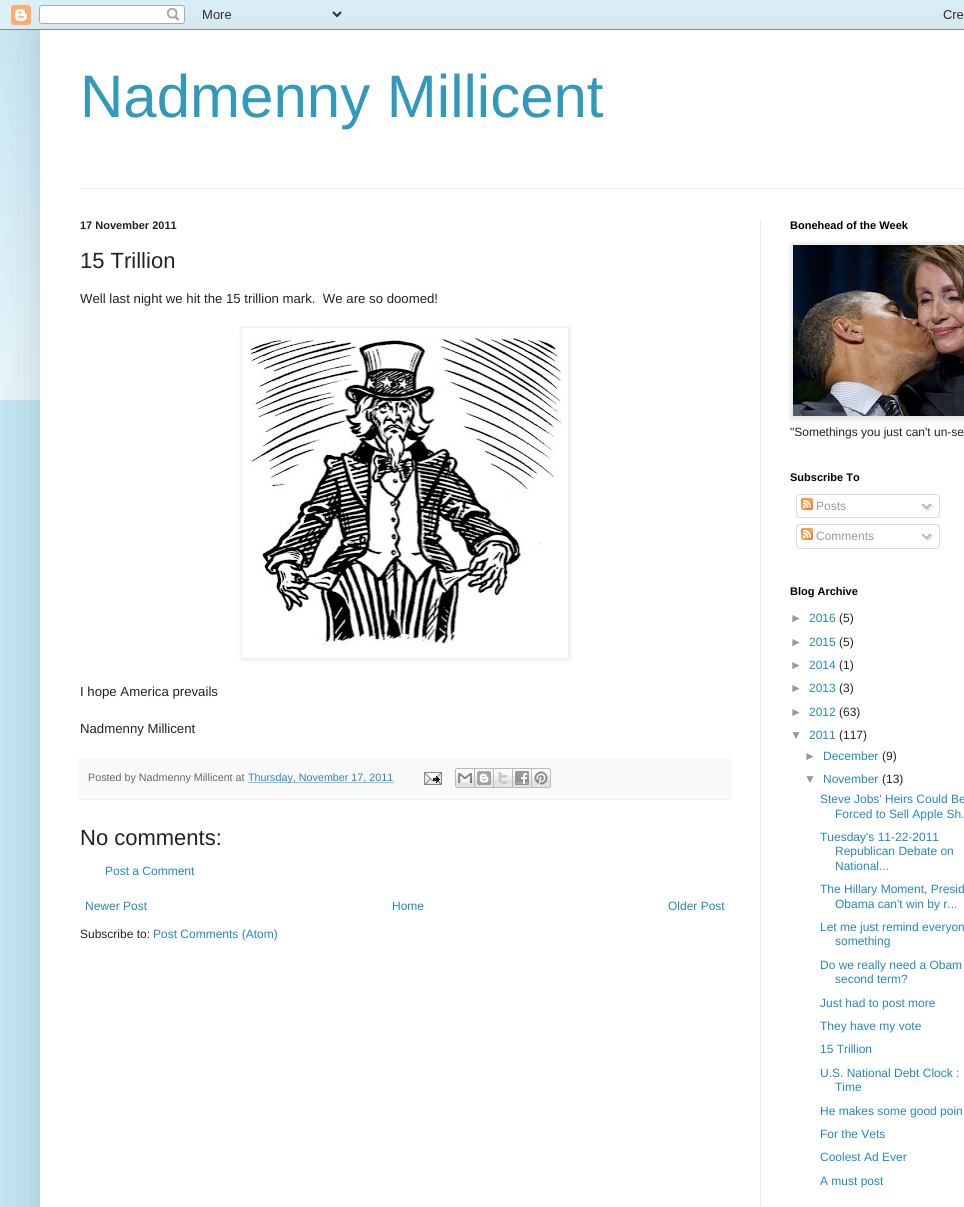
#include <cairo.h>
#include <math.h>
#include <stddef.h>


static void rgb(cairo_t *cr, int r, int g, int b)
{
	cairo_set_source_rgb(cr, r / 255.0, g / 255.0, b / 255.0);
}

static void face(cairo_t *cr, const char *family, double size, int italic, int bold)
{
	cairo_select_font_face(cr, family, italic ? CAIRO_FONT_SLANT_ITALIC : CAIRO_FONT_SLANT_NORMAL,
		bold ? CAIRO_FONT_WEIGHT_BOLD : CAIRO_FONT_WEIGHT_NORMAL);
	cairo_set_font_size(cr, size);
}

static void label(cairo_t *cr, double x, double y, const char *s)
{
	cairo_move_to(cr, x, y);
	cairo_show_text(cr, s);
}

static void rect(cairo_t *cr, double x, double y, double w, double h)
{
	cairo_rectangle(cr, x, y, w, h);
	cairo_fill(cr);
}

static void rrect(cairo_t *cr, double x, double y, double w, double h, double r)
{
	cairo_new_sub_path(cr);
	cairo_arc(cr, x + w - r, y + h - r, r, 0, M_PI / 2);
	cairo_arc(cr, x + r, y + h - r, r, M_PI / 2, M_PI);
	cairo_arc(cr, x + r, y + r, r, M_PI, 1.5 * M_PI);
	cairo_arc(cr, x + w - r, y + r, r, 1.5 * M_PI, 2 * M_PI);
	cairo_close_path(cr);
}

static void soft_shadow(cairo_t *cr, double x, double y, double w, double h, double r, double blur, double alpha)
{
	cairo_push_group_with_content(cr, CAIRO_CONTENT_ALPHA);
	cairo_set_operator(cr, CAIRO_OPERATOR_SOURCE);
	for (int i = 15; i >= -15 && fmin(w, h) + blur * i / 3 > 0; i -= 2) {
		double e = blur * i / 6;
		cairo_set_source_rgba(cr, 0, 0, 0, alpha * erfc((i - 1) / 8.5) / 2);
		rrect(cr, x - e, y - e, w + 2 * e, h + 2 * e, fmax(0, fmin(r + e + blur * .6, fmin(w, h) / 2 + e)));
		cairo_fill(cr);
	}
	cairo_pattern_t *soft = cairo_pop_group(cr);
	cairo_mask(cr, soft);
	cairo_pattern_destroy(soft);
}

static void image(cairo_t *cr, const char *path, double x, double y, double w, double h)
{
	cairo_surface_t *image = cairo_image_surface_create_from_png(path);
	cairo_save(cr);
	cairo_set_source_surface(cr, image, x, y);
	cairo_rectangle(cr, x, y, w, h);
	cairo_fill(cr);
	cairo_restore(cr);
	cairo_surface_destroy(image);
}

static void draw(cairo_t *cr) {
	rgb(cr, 194, 228, 242);
	cairo_paint(cr);
	image(cr, "image1.png", 0, 10, 964, 390);
	rgb(cr, 0, 0, 0);
	soft_shadow(cr, 40, 30, 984, 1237, 0, 20, 0.15);
	image(cr, "image0.png", 0, 0, 964, 30);
	rgb(cr, 255, 255, 255);
	rect(cr, 40, 30, 924, 1177);
	face(cr, "Liberation Sans", 60, 0, 0);
	rgb(cr, 51, 153, 187);
	label(cr, 80, 117, "Nadmenny Millicent");
	rgb(cr, 238, 238, 238);
	rect(cr, 80, 188, 884, 1);
	rect(cr, 760, 219, 1, 988);
	face(cr, "Liberation Sans", 11, 0, 1);
	rgb(cr, 34, 34, 34);
	label(cr, 80, 229, "17 November 2011");
	face(cr, "Liberation Sans", 22, 0, 0);
	label(cr, 80, 268, "15 Trillion");
	face(cr, "Liberation Sans", 13.2, 0, 0);
	label(cr, 80, 303, "Well last night we hit the 15 trillion mark.  We are so doomed!");
	cairo_save(cr);
	cairo_set_fill_rule(cr, CAIRO_FILL_RULE_EVEN_ODD);
	cairo_new_path(cr);
	cairo_move_to(cr, 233, 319);
	cairo_line_to(cr, 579, 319);
	cairo_line_to(cr, 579, 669);
	cairo_line_to(cr, 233, 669);
	cairo_close_path(cr);
	cairo_move_to(cr, 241, 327);
	cairo_line_to(cr, 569, 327);
	cairo_line_to(cr, 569, 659);
	cairo_line_to(cr, 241, 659);
	cairo_close_path(cr);
	cairo_clip(cr);
	rgb(cr, 0, 0, 0);
	soft_shadow(cr, 242, 328, 328, 332, 0, 2.5, 0.1);
	cairo_restore(cr);
	cairo_rectangle(cr, 241.5, 327.5, 327, 331);
	rgb(cr, 238, 238, 238);
	cairo_set_line_width(cr, 1);
	cairo_stroke(cr);
	image(cr, "image2.png", 247, 333, 316, 312);
	rgb(cr, 34, 34, 34);
	label(cr, 80, 696, "I hope America prevails");
	label(cr, 80, 733, "Nadmenny Millicent");
	rgb(cr, 249, 249, 249);
	rect(cr, 78, 758, 654, 41);
	rgb(cr, 238, 238, 238);
	rect(cr, 78, 799, 654, 1);
	face(cr, "Liberation Sans", 10.75, 0, 0);
	rgb(cr, 102, 102, 102);
	label(cr, 88, 781, "Posted by Nadmenny Millicent at");
	cairo_new_path(cr);
	cairo_move_to(cr, 248.5, 782.5);
	cairo_line_to(cr, 394, 782.5);
	rgb(cr, 34, 136, 187);
	cairo_set_dash(cr, (double[]){1, 1}, 2, 0);
	cairo_stroke(cr);
	label(cr, 248, 781, "Thursday, November 17, 2011");
	image(cr, "image3.png", 424, 772, 18, 13);
	image(cr, "image4.png", 455, 768, 20, 20);
	image(cr, "image5.png", 475, 768, 19, 20);
	image(cr, "image6.png", 494, 768, 19, 20);
	image(cr, "image7.png", 513, 768, 19, 20);
	image(cr, "image8.png", 532, 768, 19, 20);
	face(cr, "Liberation Sans", 22, 0, 0);
	rgb(cr, 34, 34, 34);
	label(cr, 80, 845, "No comments:");
	face(cr, "Liberation Sans", 12, 0, 0);
	rgb(cr, 34, 136, 187);
	label(cr, 105, 875, "Post a Comment");
	label(cr, 85, 910, "Newer Post");
	label(cr, 392, 910, "Home");
	label(cr, 668, 910, "Older Post");
	rgb(cr, 34, 34, 34);
	label(cr, 80, 938, "Subscribe to:");
	rgb(cr, 34, 136, 187);
	label(cr, 153, 938, "Post Comments (Atom)");
	face(cr, "Liberation Sans", 11, 0, 1);
	rgb(cr, 0, 0, 0);
	label(cr, 790, 229, "Bonehead of the Week");
	rgb(cr, 0, 0, 0);
	soft_shadow(cr, 791, 243, 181, 177, 0, 2.5, 0.1);
	cairo_rectangle(cr, 790.5, 242.5, 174, 176);
	rgb(cr, 238, 238, 238);
	cairo_set_dash(cr, NULL, 0, 0);
	cairo_stroke(cr);
	image(cr, "image9.png", 793, 245, 171, 171);
	face(cr, "Liberation Sans", 12, 0, 0);
	rgb(cr, 34, 34, 34);
	label(cr, 790, 436, "\"Somethings you just can't un-se");
	face(cr, "Liberation Sans", 11, 0, 1);
	rgb(cr, 0, 0, 0);
	label(cr, 790, 481, "Subscribe To");
	image(cr, "image10.png", 796, 494, 144, 21);
	image(cr, "image11.png", 801, 498, 12, 12);
	face(cr, "Liberation Sans", 12, 0, 0);
	rgb(cr, 153, 153, 153);
	label(cr, 816, 510, "Posts");
	image(cr, "image12.png", 921, 503, 13, 9);
	image(cr, "image13.png", 796, 515, 144, 3);
	image(cr, "image14.png", 796, 524, 144, 22);
	image(cr, "image11.png", 801, 528, 12, 12);
	label(cr, 816, 540, "Comments");
	image(cr, "image12.png", 921, 533, 13, 9);
	image(cr, "image13.png", 796, 546, 144, 3);
	face(cr, "Liberation Sans", 11, 0, 1);
	rgb(cr, 0, 0, 0);
	label(cr, 790, 595, "Blog Archive");
	face(cr, "Liberation Sans", 12, 0, 0);
	rgb(cr, 153, 153, 153);
	label(cr, 790, 622, "►");
	rgb(cr, 34, 136, 187);
	label(cr, 809, 622, "2016");
	rgb(cr, 34, 34, 34);
	label(cr, 839, 622, "(5)");
	rgb(cr, 153, 153, 153);
	label(cr, 790, 646, "►");
	rgb(cr, 34, 136, 187);
	label(cr, 809, 646, "2015");
	rgb(cr, 34, 34, 34);
	label(cr, 839, 646, "(5)");
	rgb(cr, 153, 153, 153);
	label(cr, 790, 669, "►");
	rgb(cr, 34, 136, 187);
	label(cr, 809, 669, "2014");
	rgb(cr, 34, 34, 34);
	label(cr, 839, 669, "(1)");
	rgb(cr, 153, 153, 153);
	label(cr, 790, 692, "►");
	rgb(cr, 34, 136, 187);
	label(cr, 809, 692, "2013");
	rgb(cr, 34, 34, 34);
	label(cr, 839, 692, "(3)");
	rgb(cr, 153, 153, 153);
	label(cr, 790, 716, "►");
	rgb(cr, 34, 136, 187);
	label(cr, 809, 716, "2012");
	rgb(cr, 34, 34, 34);
	label(cr, 839, 716, "(63)");
	rgb(cr, 153, 153, 153);
	label(cr, 790, 739, "▼");
	rgb(cr, 34, 136, 187);
	label(cr, 809, 739, "2011");
	rgb(cr, 34, 34, 34);
	label(cr, 839, 739, "(117)");
	rgb(cr, 153, 153, 153);
	label(cr, 804, 760, "►");
	rgb(cr, 34, 136, 187);
	label(cr, 823, 760, "December");
	rgb(cr, 34, 34, 34);
	label(cr, 882, 760, "(9)");
	rgb(cr, 153, 153, 153);
	label(cr, 804, 783, "▼");
	rgb(cr, 34, 136, 187);
	label(cr, 823, 783, "November");
	rgb(cr, 34, 34, 34);
	label(cr, 882, 783, "(13)");
	rgb(cr, 34, 136, 187);
	label(cr, 820, 803, "Steve Jobs' Heirs Could Be");
	label(cr, 835, 818, "Forced to Sell Apple Sh.");
	label(cr, 820, 841, "Tuesday's 11-22-2011");
	label(cr, 835, 855, "Republican Debate on");
	label(cr, 835, 870, "National...");
	label(cr, 820, 893, "The Hillary Moment, Presid");
	label(cr, 835, 908, "Obama can't win by r...");
	label(cr, 820, 931, "Let me just remind everyon");
	label(cr, 835, 945, "something");
	label(cr, 820, 969, "Do we really need a Obam");
	label(cr, 835, 983, "second term?");
	label(cr, 820, 1007, "Just had to post more");
	label(cr, 820, 1030, "They have my vote");
	label(cr, 820, 1053, "15 Trillion");
	label(cr, 820, 1077, "U.S. National Debt Clock :");
	label(cr, 835, 1091, "Time");
	label(cr, 820, 1115, "He makes some good poin");
	label(cr, 820, 1138, "For the Vets");
	label(cr, 820, 1161, "Coolest Ad Ever");
	label(cr, 820, 1185, "A must post");
}

int main(void) {
	cairo_surface_t *surface = cairo_image_surface_create(CAIRO_FORMAT_RGB24, 964, 1207);
	cairo_t *cr = cairo_create(surface);
	cairo_font_options_t *options = cairo_font_options_create();
	cairo_font_options_set_hint_metrics(options, CAIRO_HINT_METRICS_OFF);
	cairo_font_options_set_hint_style(options, CAIRO_HINT_STYLE_NONE);
	cairo_set_font_options(cr, options);
	cairo_set_miter_limit(cr, 4);
	draw(cr);
	cairo_surface_write_to_png(surface, "render.png");
	cairo_font_options_destroy(options);
	cairo_destroy(cr);
	cairo_surface_destroy(surface);
	return 0;
}
